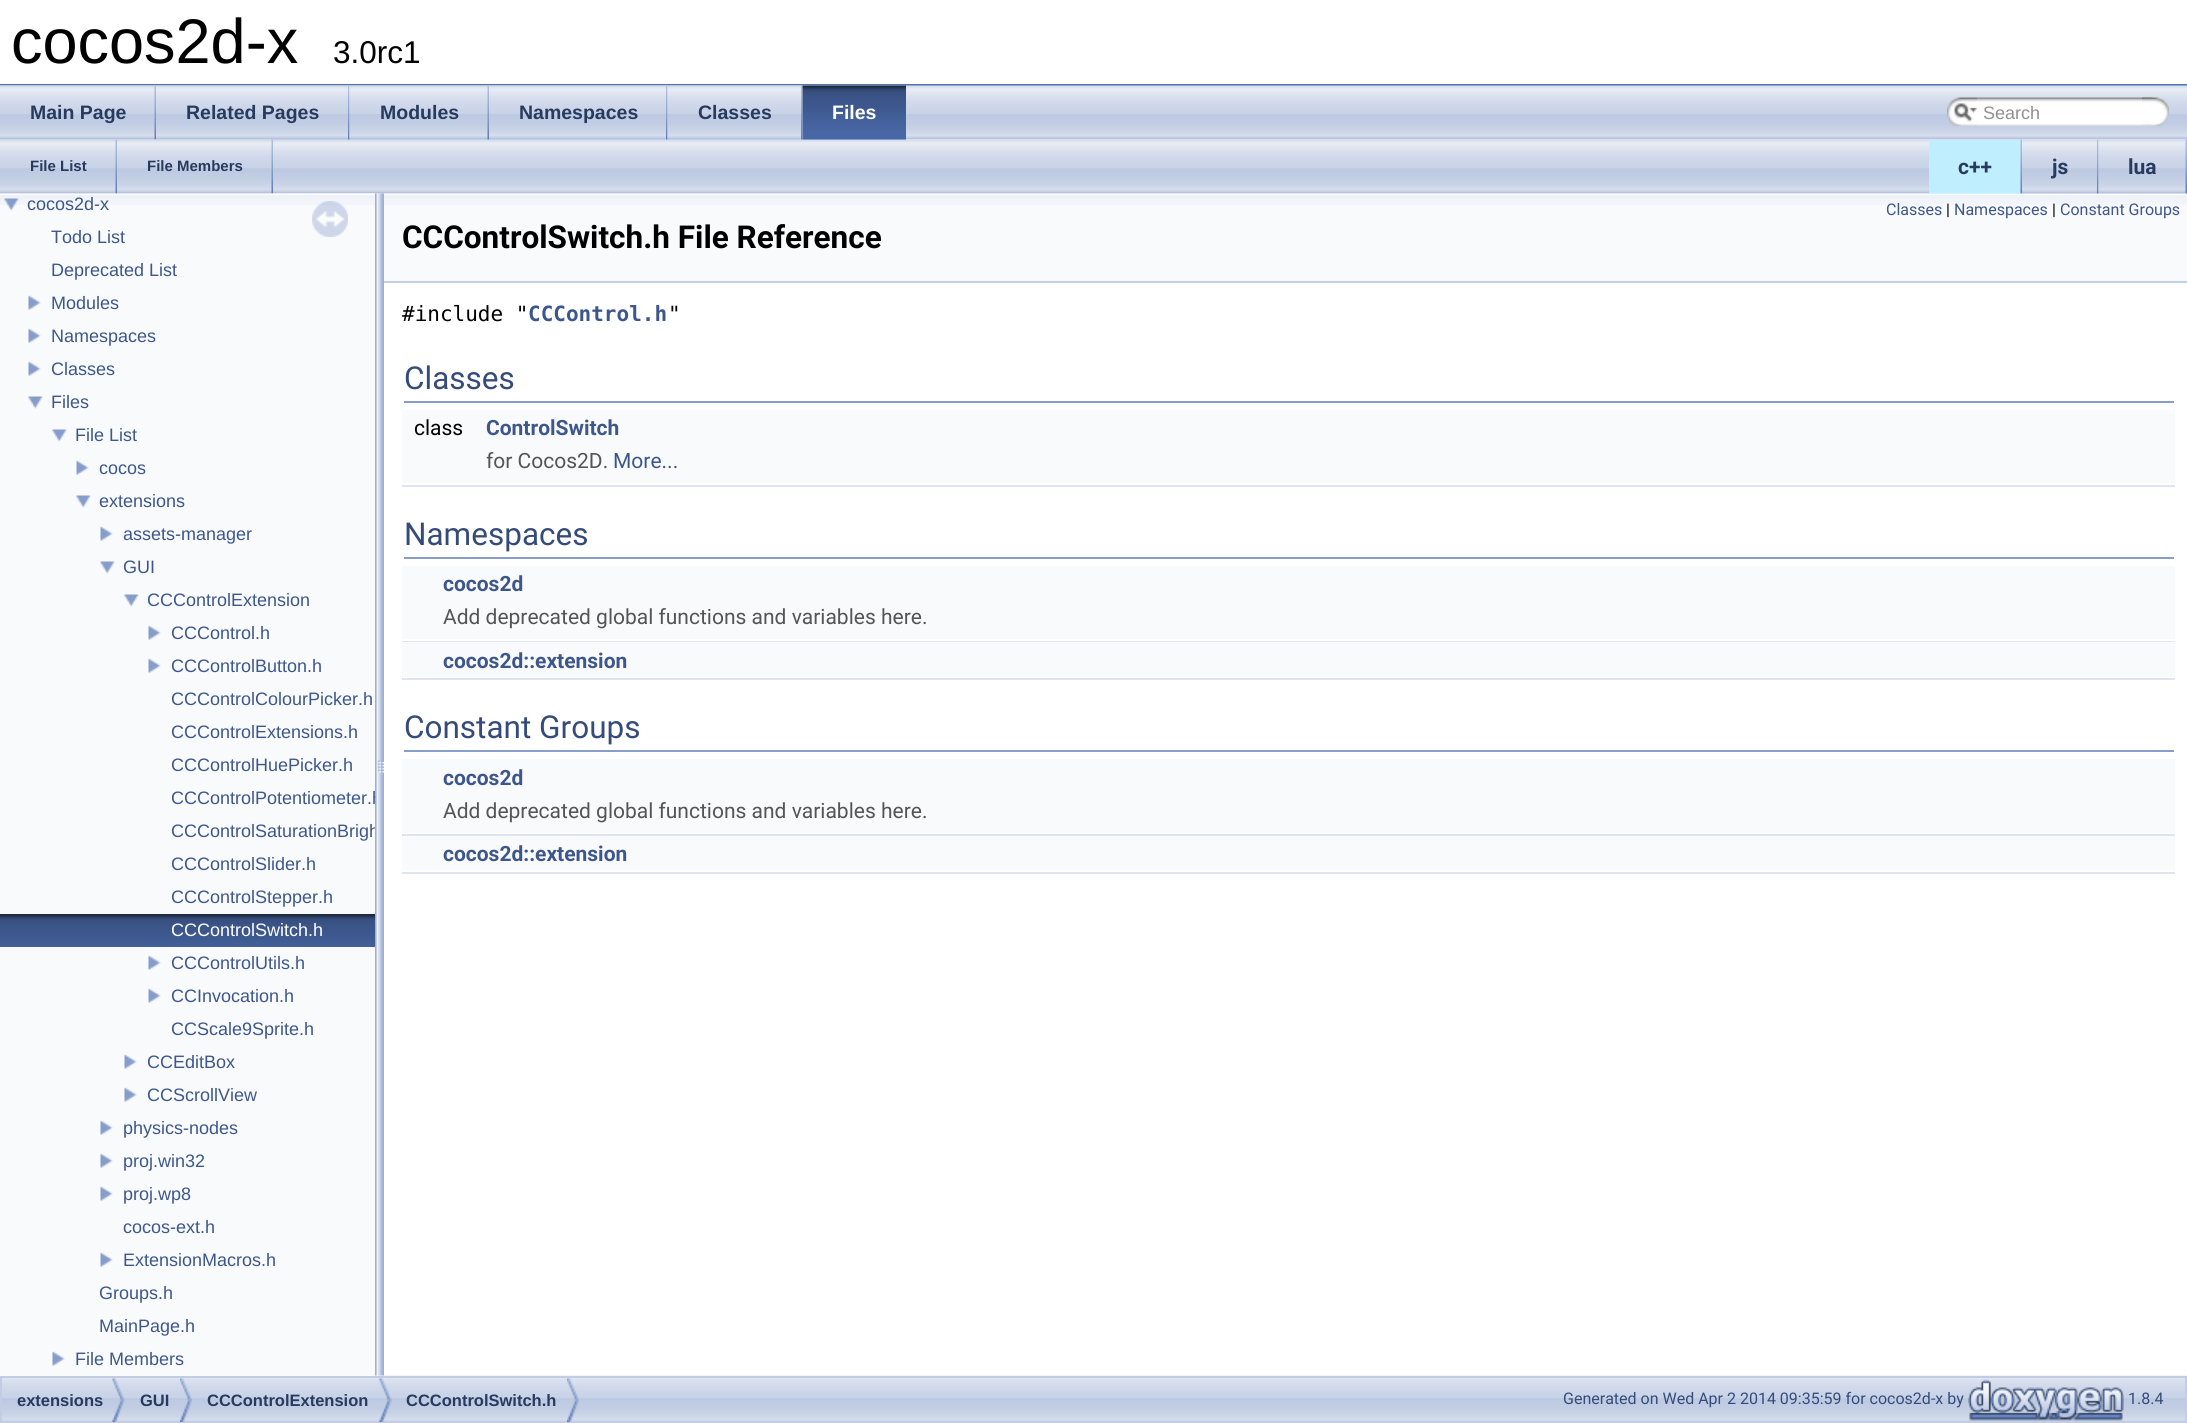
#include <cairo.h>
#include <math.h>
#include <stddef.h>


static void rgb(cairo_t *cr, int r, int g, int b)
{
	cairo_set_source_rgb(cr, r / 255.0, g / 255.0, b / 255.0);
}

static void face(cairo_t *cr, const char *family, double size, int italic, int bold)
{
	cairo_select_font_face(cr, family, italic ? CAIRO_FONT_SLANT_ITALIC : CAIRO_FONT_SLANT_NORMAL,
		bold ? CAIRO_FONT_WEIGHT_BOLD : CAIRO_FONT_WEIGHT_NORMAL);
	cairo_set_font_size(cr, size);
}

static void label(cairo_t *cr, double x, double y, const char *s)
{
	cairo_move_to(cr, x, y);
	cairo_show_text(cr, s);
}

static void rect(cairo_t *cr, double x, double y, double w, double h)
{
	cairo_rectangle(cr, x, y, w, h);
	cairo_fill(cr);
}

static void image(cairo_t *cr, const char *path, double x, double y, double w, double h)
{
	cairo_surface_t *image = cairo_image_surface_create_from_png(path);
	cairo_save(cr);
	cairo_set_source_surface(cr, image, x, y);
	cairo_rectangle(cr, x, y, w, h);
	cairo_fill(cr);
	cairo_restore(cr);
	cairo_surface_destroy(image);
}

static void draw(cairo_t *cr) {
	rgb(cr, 255, 255, 255);
	cairo_paint(cr);
	rgb(cr, 83, 115, 180);
	rect(cr, 0, 84, 2187, 2);
	face(cr, "Liberation Sans", 63, 0, 0);
	rgb(cr, 0, 0, 0);
	label(cr, 11, 63, "cocos2d-x");
	face(cr, "Liberation Sans", 31.5, 0, 0);
	label(cr, 333, 63, "3.0rc1");
	image(cr, "image0.png", 0, 85, 2187, 55);
	image(cr, "image1.png", 0, 85, 156, 55);
	image(cr, "image2.png", 154, 86, 2, 54);
	face(cr, "Liberation Sans", 19.5, 0, 1);
	rgb(cr, 40, 58, 93);
	label(cr, 30, 119, "Main Page");
	image(cr, "image3.png", 156, 85, 194, 55);
	image(cr, "image4.png", 348, 86, 2, 54);
	label(cr, 186, 119, "Related Pages");
	image(cr, "image5.png", 349, 85, 140, 55);
	image(cr, "image2.png", 487, 86, 2, 54);
	label(cr, 380, 119, "Modules");
	image(cr, "image6.png", 489, 85, 179, 55);
	image(cr, "image4.png", 666, 86, 2, 54);
	label(cr, 519, 119, "Namespaces");
	image(cr, "image7.png", 667, 85, 136, 55);
	image(cr, "image4.png", 801, 86, 2, 54);
	label(cr, 698, 119, "Classes");
	image(cr, "image8.png", 802, 85, 104, 55);
	image(cr, "image9.png", 802, 85, 104, 55);
	rgb(cr, 255, 255, 255);
	label(cr, 832, 119, "Files");
	image(cr, "image10.png", 1947, 97, 30, 29);
	image(cr, "image11.png", 1954, 103, 23, 19);
	image(cr, "image12.png", 1977, 97, 176, 29);
	face(cr, "Liberation Sans", 18, 0, 0);
	rgb(cr, 144, 144, 144);
	label(cr, 1983, 119, "Search");
	image(cr, "image13.png", 2142, 97, 27, 29);
	image(cr, "image14.png", 0, 140, 2187, 54);
	image(cr, "image15.png", 0, 139, 117, 55);
	image(cr, "image16.png", 115, 139, 2, 55);
	face(cr, "Liberation Sans", 15, 0, 1);
	rgb(cr, 40, 58, 93);
	label(cr, 30, 171, "File List");
	image(cr, "image17.png", 117, 139, 156, 55);
	image(cr, "image16.png", 271, 139, 2, 55);
	label(cr, 147, 171, "File Members");
	rgb(cr, 191, 239, 255);
	rect(cr, 1929, 140, 93, 54);
	image(cr, "image18.png", 2020, 139, 2, 55);
	face(cr, "Roboto", 21, 0, 1);
	rgb(cr, 40, 58, 93);
	label(cr, 1958, 174, "c++");
	image(cr, "image19.png", 2022, 193, 77, 1);
	image(cr, "image20.png", 2097, 139, 2, 55);
	label(cr, 2052, 174, "js");
	image(cr, "image21.png", 2098, 140, 89, 54);
	image(cr, "image22.png", 2185, 139, 2, 55);
	label(cr, 2128, 174, "lua");
	image(cr, "image31.png", 2, 1375, 2185, 47);
	rgb(cr, 249, 250, 252);
	rect(cr, 0, 205, 375, 1171);
	image(cr, "image23.png", 0, 193, 375, 12);
	image(cr, "image24.png", 4, 198, 15, 13);
	face(cr, "Liberation Sans", 18, 0, 0);
	rgb(cr, 61, 87, 140);
	label(cr, 27, 210, "cocos2d-x");
	label(cr, 51, 243, "Todo List");
	label(cr, 51, 276, "Deprecated List");
	image(cr, "image25.png", 28, 295, 13, 15);
	label(cr, 51, 309, "Modules");
	image(cr, "image25.png", 28, 328, 13, 15);
	label(cr, 51, 342, "Namespaces");
	image(cr, "image25.png", 28, 361, 13, 15);
	label(cr, 51, 375, "Classes");
	image(cr, "image26.png", 28, 396, 15, 13);
	label(cr, 51, 408, "Files");
	image(cr, "image26.png", 52, 429, 15, 13);
	label(cr, 75, 441, "File List");
	image(cr, "image25.png", 76, 460, 13, 15);
	label(cr, 99, 474, "cocos");
	image(cr, "image26.png", 76, 495, 15, 13);
	label(cr, 99, 507, "extensions");
	image(cr, "image25.png", 100, 526, 13, 15);
	label(cr, 123, 540, "assets-manager");
	image(cr, "image26.png", 100, 561, 15, 13);
	label(cr, 123, 573, "GUI");
	image(cr, "image26.png", 124, 594, 15, 13);
	label(cr, 147, 606, "CCControlExtension");
	image(cr, "image25.png", 148, 625, 13, 15);
	label(cr, 171, 639, "CCControl.h");
	image(cr, "image25.png", 148, 658, 13, 15);
	label(cr, 171, 672, "CCControlButton.h");
	label(cr, 171, 705, "CCControlColourPicker.h");
	label(cr, 171, 738, "CCControlExtensions.h");
	label(cr, 171, 771, "CCControlHuePicker.h");
	label(cr, 171, 804, "CCControlPotentiometer.h");
	label(cr, 171, 837, "CCControlSaturationBrigh");
	label(cr, 171, 870, "CCControlSlider.h");
	label(cr, 171, 903, "CCControlStepper.h");
	image(cr, "image27.png", 0, 914, 375, 33);
	rgb(cr, 255, 255, 255);
	label(cr, 171, 936, "CCControlSwitch.h");
	image(cr, "image25.png", 148, 955, 13, 15);
	rgb(cr, 61, 87, 140);
	label(cr, 171, 969, "CCControlUtils.h");
	image(cr, "image25.png", 148, 988, 13, 15);
	label(cr, 171, 1002, "CCInvocation.h");
	label(cr, 171, 1035, "CCScale9Sprite.h");
	image(cr, "image25.png", 124, 1054, 13, 15);
	label(cr, 147, 1068, "CCEditBox");
	image(cr, "image25.png", 124, 1087, 13, 15);
	label(cr, 147, 1101, "CCScrollView");
	image(cr, "image25.png", 100, 1120, 13, 15);
	label(cr, 123, 1134, "physics-nodes");
	image(cr, "image25.png", 100, 1153, 13, 15);
	label(cr, 123, 1167, "proj.win32");
	image(cr, "image25.png", 100, 1186, 13, 15);
	label(cr, 123, 1200, "proj.wp8");
	label(cr, 123, 1233, "cocos-ext.h");
	image(cr, "image25.png", 100, 1252, 13, 15);
	label(cr, 123, 1266, "ExtensionMacros.h");
	label(cr, 99, 1299, "Groups.h");
	label(cr, 99, 1332, "MainPage.h");
	image(cr, "image25.png", 52, 1351, 13, 15);
	label(cr, 75, 1365, "File Members");
	image(cr, "image28.png", 312, 201, 36, 36);
	image(cr, "image29.png", 375, 193, 9, 1183);
	rgb(cr, 249, 250, 252);
	rect(cr, 384, 205, 1803, 76);
	image(cr, "image30.png", 384, 193, 1803, 12);
	rgb(cr, 196, 207, 229);
	rect(cr, 384, 281, 1803, 2);
	face(cr, "Roboto", 16, 0, 0);
	rgb(cr, 61, 87, 140);
	label(cr, 1886, 215, "Classes");
	rgb(cr, 0, 0, 0);
	label(cr, 1946, 215, "|");
	rgb(cr, 61, 87, 140);
	label(cr, 1954, 215, "Namespaces");
	rgb(cr, 0, 0, 0);
	label(cr, 2052, 215, "|");
	rgb(cr, 61, 87, 140);
	label(cr, 2060, 215, "Constant Groups");
	face(cr, "Roboto", 31.5, 0, 1);
	rgb(cr, 0, 0, 0);
	label(cr, 402, 248, "CCControlSwitch.h File Reference");
	face(cr, "DejaVu Sans Mono", 21, 0, 0);
	label(cr, 402, 321, "#include \"");
	face(cr, "DejaVu Sans Mono", 21, 0, 1);
	rgb(cr, 61, 87, 140);
	label(cr, 528, 321, "CCControl.h");
	face(cr, "DejaVu Sans Mono", 21, 0, 0);
	rgb(cr, 0, 0, 0);
	label(cr, 668, 321, "\"");
	rgb(cr, 135, 158, 203);
	rect(cr, 404, 401, 1770, 2);
	face(cr, "Roboto", 31.5, 0, 0);
	rgb(cr, 53, 76, 123);
	label(cr, 404, 389, "Classes");
	rgb(cr, 249, 250, 252);
	rect(cr, 402, 410, 1773, 34);
	face(cr, "Roboto", 21, 0, 0);
	rgb(cr, 0, 0, 0);
	label(cr, 414, 435, "class");
	face(cr, "Roboto", 21, 0, 1);
	rgb(cr, 61, 87, 140);
	label(cr, 486, 435, "ControlSwitch");
	rgb(cr, 249, 250, 252);
	rect(cr, 402, 444, 1773, 39);
	face(cr, "Roboto", 21, 0, 0);
	rgb(cr, 85, 85, 85);
	label(cr, 486, 468, "for Cocos2D.");
	rgb(cr, 61, 87, 140);
	label(cr, 613, 468, "More...");
	rgb(cr, 222, 228, 240);
	rect(cr, 402, 485, 1773, 2);
	rgb(cr, 135, 158, 203);
	rect(cr, 404, 557, 1770, 2);
	face(cr, "Roboto", 31.5, 0, 0);
	rgb(cr, 53, 76, 123);
	label(cr, 404, 545, "Namespaces");
	rgb(cr, 249, 250, 252);
	rect(cr, 402, 566, 1773, 34);
	face(cr, "Roboto", 21, 0, 1);
	rgb(cr, 61, 87, 140);
	label(cr, 443, 591, "cocos2d");
	rgb(cr, 249, 250, 252);
	rect(cr, 402, 600, 1773, 39);
	face(cr, "Roboto", 21, 0, 0);
	rgb(cr, 85, 85, 85);
	label(cr, 443, 624, "Add deprecated global functions and variables here.");
	rgb(cr, 222, 228, 240);
	rect(cr, 402, 641, 1773, 1);
	rgb(cr, 249, 250, 252);
	rect(cr, 402, 642, 1773, 35);
	face(cr, "Roboto", 21, 0, 1);
	rgb(cr, 61, 87, 140);
	label(cr, 443, 668, "cocos2d::extension");
	rgb(cr, 222, 228, 240);
	rect(cr, 402, 678, 1773, 2);
	rgb(cr, 135, 158, 203);
	rect(cr, 404, 750, 1770, 2);
	face(cr, "Roboto", 31.5, 0, 0);
	rgb(cr, 53, 76, 123);
	label(cr, 404, 738, "Constant Groups");
	rgb(cr, 249, 250, 252);
	rect(cr, 402, 759, 1773, 35);
	face(cr, "Roboto", 21, 0, 1);
	rgb(cr, 61, 87, 140);
	label(cr, 443, 785, "cocos2d");
	rgb(cr, 249, 250, 252);
	rect(cr, 402, 794, 1773, 39);
	face(cr, "Roboto", 21, 0, 0);
	rgb(cr, 85, 85, 85);
	label(cr, 443, 818, "Add deprecated global functions and variables here.");
	rgb(cr, 222, 228, 240);
	rect(cr, 402, 834, 1773, 2);
	rgb(cr, 249, 250, 252);
	rect(cr, 402, 836, 1773, 34);
	face(cr, "Roboto", 21, 0, 1);
	rgb(cr, 61, 87, 140);
	label(cr, 443, 861, "cocos2d::extension");
	rgb(cr, 222, 228, 240);
	rect(cr, 402, 872, 1773, 2);
	cairo_rectangle(cr, 1, 1377, 2185, 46);
	rgb(cr, 194, 205, 228);
	cairo_stroke(cr);
	image(cr, "image32.png", 112, 1378, 13, 44);
	face(cr, "Liberation Sans", 16.5, 0, 1);
	rgb(cr, 40, 58, 93);
	label(cr, 17, 1406, "extensions");
	image(cr, "image33.png", 180, 1378, 12, 44);
	label(cr, 140, 1406, "GUI");
	image(cr, "image34.png", 379, 1378, 13, 44);
	label(cr, 207, 1406, "CCControlExtension");
	image(cr, "image35.png", 567, 1378, 12, 44);
	label(cr, 406, 1406, "CCControlSwitch.h");
	face(cr, "Roboto", 16, 0, 0);
	rgb(cr, 53, 76, 123);
	label(cr, 1563, 1404, "Generated on Wed Apr 2 2014 09:35:59 for cocos2d-x by");
	image(cr, "image36.png", 1968, 1379, 156, 42);
	label(cr, 2128, 1404, "1.8.4");
}

int main(void) {
	cairo_surface_t *surface = cairo_image_surface_create(CAIRO_FORMAT_RGB24, 2187, 1423);
	cairo_t *cr = cairo_create(surface);
	cairo_font_options_t *options = cairo_font_options_create();
	cairo_font_options_set_hint_metrics(options, CAIRO_HINT_METRICS_OFF);
	cairo_font_options_set_hint_style(options, CAIRO_HINT_STYLE_NONE);
	cairo_set_font_options(cr, options);
	cairo_set_miter_limit(cr, 4);
	draw(cr);
	cairo_surface_write_to_png(surface, "render.png");
	cairo_font_options_destroy(options);
	cairo_destroy(cr);
	cairo_surface_destroy(surface);
	return 0;
}
